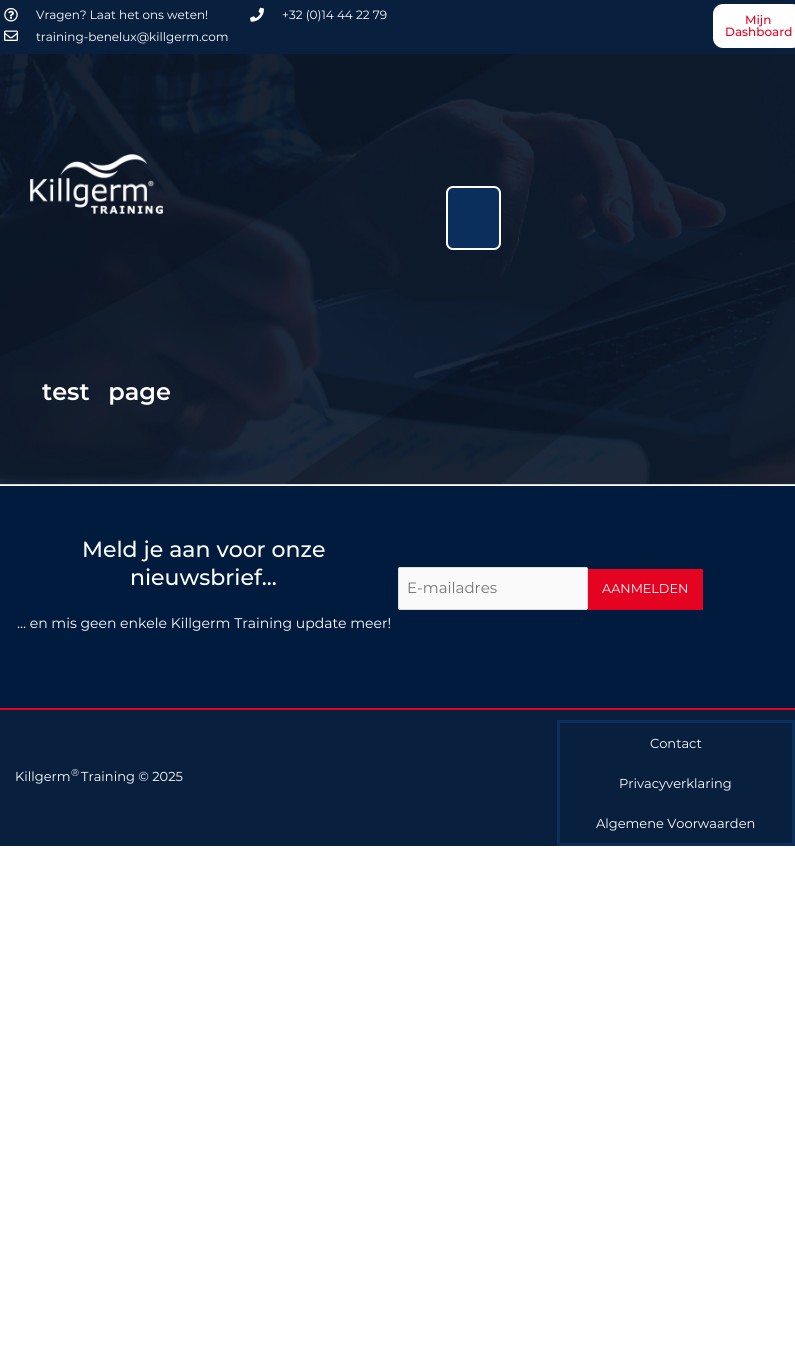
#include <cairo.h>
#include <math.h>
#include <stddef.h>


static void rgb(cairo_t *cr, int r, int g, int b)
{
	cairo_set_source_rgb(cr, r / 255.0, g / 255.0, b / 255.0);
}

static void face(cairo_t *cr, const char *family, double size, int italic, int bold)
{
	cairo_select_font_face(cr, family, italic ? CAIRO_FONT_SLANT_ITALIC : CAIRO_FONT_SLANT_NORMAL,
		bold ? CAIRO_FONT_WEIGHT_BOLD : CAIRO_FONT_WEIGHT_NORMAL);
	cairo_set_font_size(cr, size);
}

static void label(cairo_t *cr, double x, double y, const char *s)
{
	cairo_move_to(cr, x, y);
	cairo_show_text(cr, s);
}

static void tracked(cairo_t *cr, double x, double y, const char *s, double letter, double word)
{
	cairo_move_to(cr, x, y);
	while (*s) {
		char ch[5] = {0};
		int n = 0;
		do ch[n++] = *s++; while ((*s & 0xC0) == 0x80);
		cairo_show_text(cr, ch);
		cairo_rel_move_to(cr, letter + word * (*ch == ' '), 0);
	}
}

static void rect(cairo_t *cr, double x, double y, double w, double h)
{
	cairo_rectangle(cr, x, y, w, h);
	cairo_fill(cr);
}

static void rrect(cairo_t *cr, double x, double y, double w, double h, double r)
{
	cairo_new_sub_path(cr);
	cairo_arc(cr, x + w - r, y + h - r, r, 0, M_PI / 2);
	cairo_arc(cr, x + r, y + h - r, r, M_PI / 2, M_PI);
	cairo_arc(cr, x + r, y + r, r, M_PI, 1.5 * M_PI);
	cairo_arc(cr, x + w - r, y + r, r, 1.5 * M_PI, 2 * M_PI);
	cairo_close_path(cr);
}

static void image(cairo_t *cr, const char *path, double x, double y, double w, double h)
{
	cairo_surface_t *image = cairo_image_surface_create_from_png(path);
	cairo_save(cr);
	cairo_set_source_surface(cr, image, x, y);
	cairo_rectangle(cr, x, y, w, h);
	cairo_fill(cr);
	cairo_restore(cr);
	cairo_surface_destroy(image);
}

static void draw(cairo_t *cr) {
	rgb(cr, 255, 255, 255);
	cairo_paint(cr);
	rgb(cr, 8, 32, 62);
	rect(cr, 0, 0, 795, 54);
	image(cr, "image0.png", 4, 8, 14, 14);
	face(cr, "Montserrat", 12, 0, 0);
	rgb(cr, 255, 255, 255);
	label(cr, 36, 19, "Vragen? Laat het ons weten!");
	image(cr, "image1.png", 250, 7, 14, 15);
	label(cr, 282, 19, "+32 (0)14 44 22 79");
	image(cr, "image2.png", 4, 30, 14, 11);
	label(cr, 36, 41, "training-benelux@killgerm.com");
	rrect(cr, 713, 4, 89, 44, 10);
	cairo_fill(cr);
	face(cr, "Montserrat Medium", 12, 0, 0);
	rgb(cr, 228, 4, 33);
	label(cr, 745, 24, "Mijn");
	label(cr, 725, 36, "Dashboard");
	image(cr, "image3.png", 0, 54, 795, 430);
	rgb(cr, 216, 216, 216);
	rect(cr, 0, 484, 795, 1);
	image(cr, "image4.png", 30, 154, 133, 60);
	rgb(cr, 10, 47, 93);
	rrect(cr, 447, 187, 53, 62, 6);
	cairo_fill_preserve(cr);
	rgb(cr, 255, 255, 255);
	cairo_stroke(cr);
	face(cr, "Montserrat SemiBold", 24, 0, 0);
	tracked(cr, 42, 400, "test page", 0, 12);
	rgb(cr, 0, 27, 62);
	rect(cr, 0, 486, 795, 222);
	face(cr, "Montserrat Medium", 22, 0, 0);
	rgb(cr, 255, 255, 255);
	label(cr, 82, 557, "Meld je aan voor onze");
	label(cr, 130, 585, "nieuwsbrief...");
	face(cr, "Montserrat", 14, 0, 0);
	label(cr, 17, 628, "… en mis geen enkele Killgerm Training update meer!");
	rgb(cr, 250, 250, 250);
	rrect(cr, 398.5, 567.5, 189, 42, 1.5);
	cairo_fill_preserve(cr);
	rgb(cr, 221, 221, 221);
	cairo_set_line_width(cr, 1);
	cairo_stroke(cr);
	face(cr, "Montserrat", 15, 0, 0);
	rgb(cr, 117, 117, 117);
	label(cr, 407, 593, "E-mailadres");
	rgb(cr, 228, 4, 33);
	rect(cr, 588, 569, 115, 41);
	face(cr, "Montserrat", 12.75, 0, 0);
	rgb(cr, 255, 255, 255);
	label(cr, 602, 593, "AANMELDEN");
	rgb(cr, 8, 32, 62);
	rect(cr, 0, 710, 795, 136);
	rgb(cr, 228, 4, 33);
	rect(cr, 0, 708, 795, 2);
	face(cr, "Montserrat", 13, 0, 0);
	rgb(cr, 255, 255, 255);
	label(cr, 15, 781, "Killgerm");
	face(cr, "Montserrat", 10, 0, 0);
	label(cr, 71, 776, "®");
	face(cr, "Montserrat", 13, 0, 0);
	label(cr, 81, 781, "Training © 2025");
	cairo_rectangle(cr, 558.5, 721.5, 235, 123);
	rgb(cr, 10, 47, 93);
	cairo_set_line_width(cr, 3);
	cairo_stroke(cr);
	rgb(cr, 255, 255, 255);
	label(cr, 650, 748, "Contact");
	label(cr, 619, 788, "Privacyverklaring");
	label(cr, 596, 828, "Algemene Voorwaarden");
}

int main(void) {
	cairo_surface_t *surface = cairo_image_surface_create(CAIRO_FORMAT_RGB24, 795, 1362);
	cairo_t *cr = cairo_create(surface);
	cairo_font_options_t *options = cairo_font_options_create();
	cairo_font_options_set_hint_metrics(options, CAIRO_HINT_METRICS_OFF);
	cairo_font_options_set_hint_style(options, CAIRO_HINT_STYLE_NONE);
	cairo_set_font_options(cr, options);
	cairo_set_miter_limit(cr, 4);
	draw(cr);
	cairo_surface_write_to_png(surface, "render.png");
	cairo_font_options_destroy(options);
	cairo_destroy(cr);
	cairo_surface_destroy(surface);
	return 0;
}
